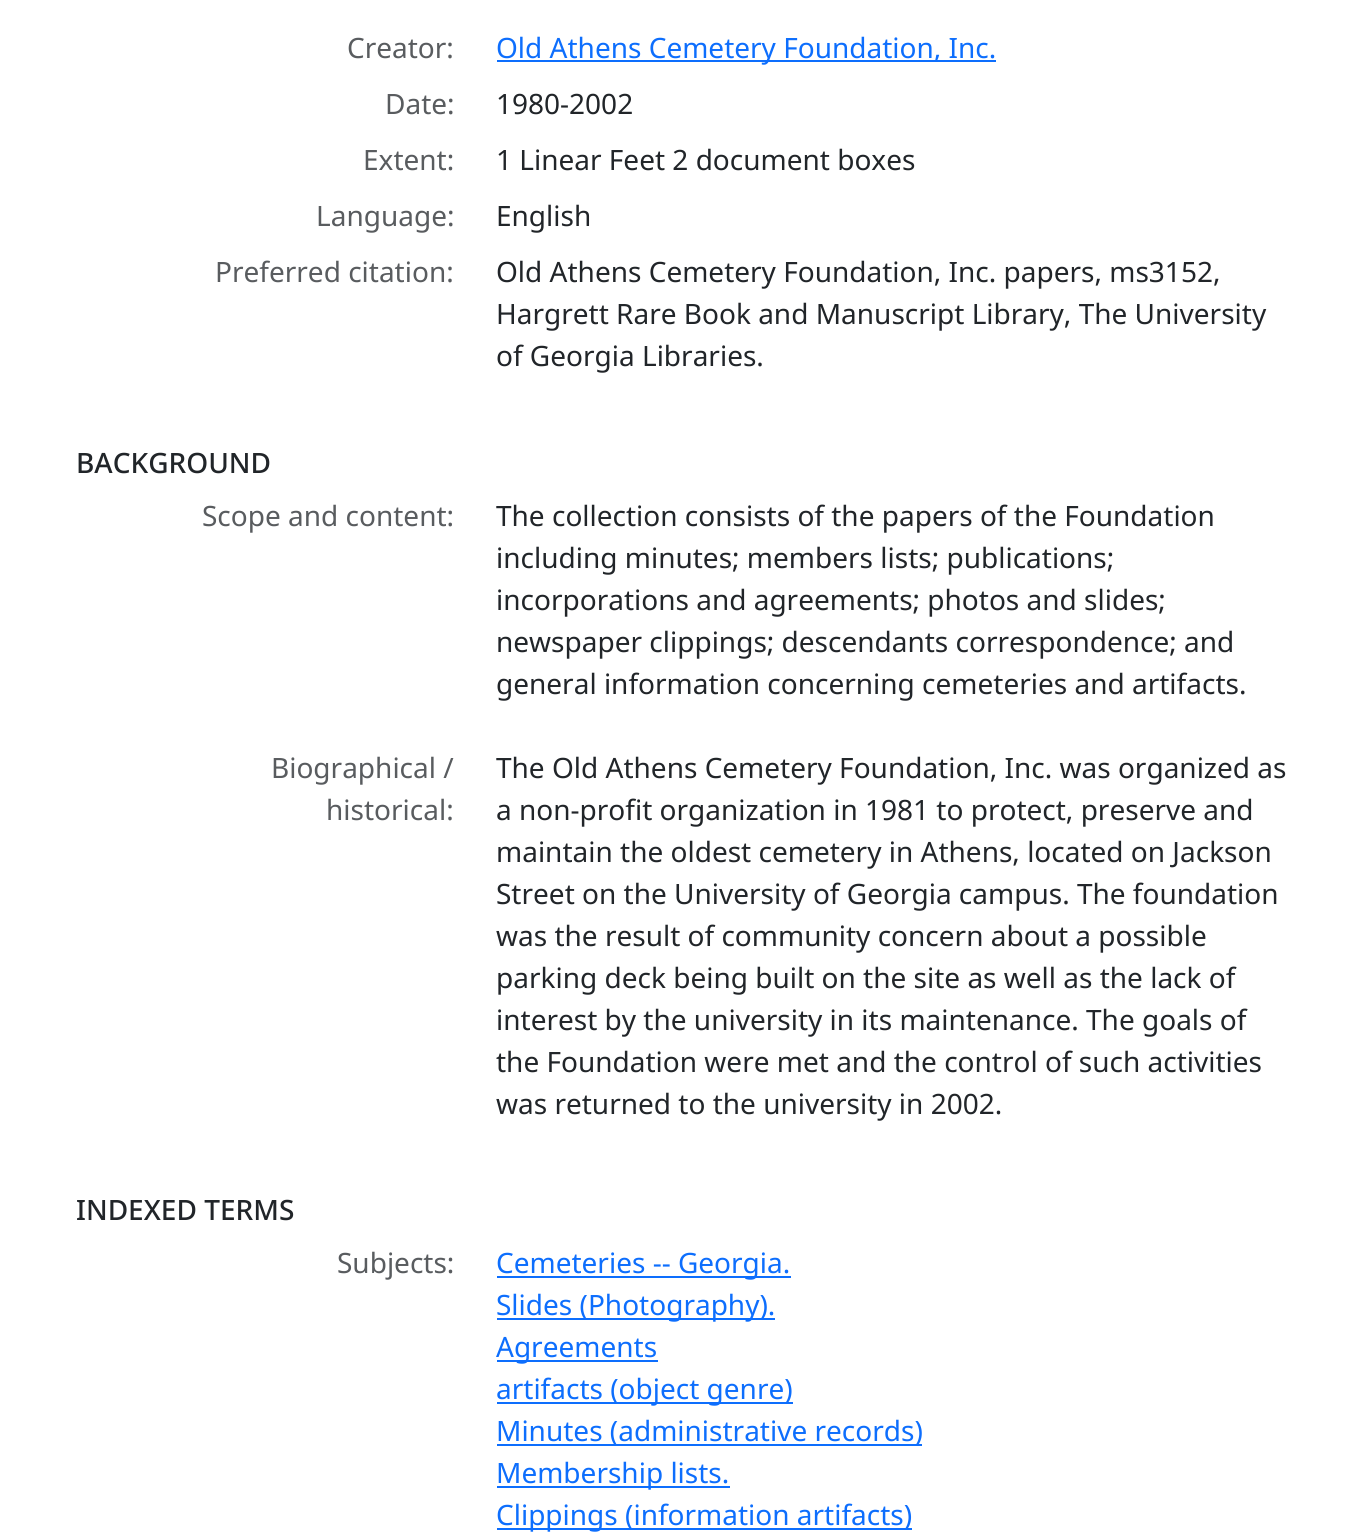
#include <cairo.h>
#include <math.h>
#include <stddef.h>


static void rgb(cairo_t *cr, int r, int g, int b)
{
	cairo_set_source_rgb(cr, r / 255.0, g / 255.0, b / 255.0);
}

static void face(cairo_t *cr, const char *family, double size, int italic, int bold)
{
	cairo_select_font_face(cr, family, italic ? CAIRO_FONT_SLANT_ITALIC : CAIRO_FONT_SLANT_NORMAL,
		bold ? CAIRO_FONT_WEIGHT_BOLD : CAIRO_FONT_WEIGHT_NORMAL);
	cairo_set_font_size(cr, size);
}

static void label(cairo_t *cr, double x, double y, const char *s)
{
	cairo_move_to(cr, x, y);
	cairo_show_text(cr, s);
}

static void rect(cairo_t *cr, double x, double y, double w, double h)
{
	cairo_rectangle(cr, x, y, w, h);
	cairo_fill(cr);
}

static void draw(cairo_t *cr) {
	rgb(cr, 255, 255, 255);
	cairo_paint(cr);
	face(cr, "Noto Sans", 28, 0, 0);
	rgb(cr, 89, 92, 95);
	label(cr, 347, 58, "Creator:");
	rgb(cr, 13, 110, 253);
	rect(cr, 497, 60, 499, 2);
	label(cr, 496, 58, "Old Athens Cemetery Foundation, Inc.");
	rgb(cr, 89, 92, 95);
	label(cr, 385, 114, "Date:");
	rgb(cr, 33, 37, 41);
	label(cr, 496, 114, "1980-2002");
	rgb(cr, 89, 92, 95);
	label(cr, 363, 170, "Extent:");
	rgb(cr, 33, 37, 41);
	label(cr, 496, 170, "1 Linear Feet 2 document boxes");
	rgb(cr, 89, 92, 95);
	label(cr, 316, 226, "Language:");
	rgb(cr, 33, 37, 41);
	label(cr, 496, 226, "English");
	rgb(cr, 89, 92, 95);
	label(cr, 215, 282, "Preferred citation:");
	rgb(cr, 33, 37, 41);
	label(cr, 496, 282, "Old Athens Cemetery Foundation, Inc. papers, ms3152,");
	label(cr, 496, 324, "Hargrett Rare Book and Manuscript Library, The University");
	label(cr, 496, 366, "of Georgia Libraries.");
	face(cr, "Noto Sans Medium", 28, 0, 0);
	label(cr, 76, 473, "BACKGROUND");
	face(cr, "Noto Sans", 28, 0, 0);
	rgb(cr, 89, 92, 95);
	label(cr, 202, 526, "Scope and content:");
	rgb(cr, 33, 37, 41);
	label(cr, 496, 526, "The collection consists of the papers of the Foundation");
	label(cr, 496, 568, "including minutes; members lists; publications;");
	label(cr, 496, 610, "incorporations and agreements; photos and slides;");
	label(cr, 496, 652, "newspaper clippings; descendants correspondence; and");
	label(cr, 496, 694, "general information concerning cemeteries and artifacts.");
	rgb(cr, 89, 92, 95);
	label(cr, 271, 778, "Biographical /");
	label(cr, 326, 820, "historical:");
	rgb(cr, 33, 37, 41);
	label(cr, 496, 778, "The Old Athens Cemetery Foundation, Inc. was organized as");
	label(cr, 496, 820, "a non-profit organization in 1981 to protect, preserve and");
	label(cr, 496, 862, "maintain the oldest cemetery in Athens, located on Jackson");
	label(cr, 496, 904, "Street on the University of Georgia campus. The foundation");
	label(cr, 496, 946, "was the result of community concern about a possible");
	label(cr, 496, 988, "parking deck being built on the site as well as the lack of");
	label(cr, 496, 1030, "interest by the university in its maintenance. The goals of");
	label(cr, 496, 1072, "the Foundation were met and the control of such activities");
	label(cr, 496, 1114, "was returned to the university in 2002.");
	face(cr, "Noto Sans Medium", 28, 0, 0);
	label(cr, 76, 1220, "INDEXED TERMS");
	face(cr, "Noto Sans", 28, 0, 0);
	rgb(cr, 89, 92, 95);
	label(cr, 337, 1273, "Subjects:");
	rgb(cr, 13, 110, 253);
	rect(cr, 497, 1276, 294, 2);
	label(cr, 496, 1273, "Cemeteries -- Georgia.");
	rect(cr, 497, 1318, 278, 2);
	label(cr, 496, 1315, "Slides (Photography).");
	rect(cr, 497, 1360, 161, 2);
	label(cr, 496, 1357, "Agreements");
	rect(cr, 497, 1402, 296, 2);
	label(cr, 496, 1399, "artifacts (object genre)");
	rect(cr, 497, 1444, 425, 2);
	label(cr, 496, 1441, "Minutes (administrative records)");
	rect(cr, 497, 1486, 233, 2);
	label(cr, 496, 1483, "Membership lists.");
	rect(cr, 497, 1528, 415, 2);
	label(cr, 496, 1525, "Clippings (information artifacts)");
}

int main(void) {
	cairo_surface_t *surface = cairo_image_surface_create(CAIRO_FORMAT_RGB24, 1370, 1540);
	cairo_t *cr = cairo_create(surface);
	cairo_font_options_t *options = cairo_font_options_create();
	cairo_font_options_set_hint_metrics(options, CAIRO_HINT_METRICS_OFF);
	cairo_font_options_set_hint_style(options, CAIRO_HINT_STYLE_NONE);
	cairo_set_font_options(cr, options);
	cairo_set_miter_limit(cr, 4);
	draw(cr);
	cairo_surface_write_to_png(surface, "render.png");
	cairo_font_options_destroy(options);
	cairo_destroy(cr);
	cairo_surface_destroy(surface);
	return 0;
}
